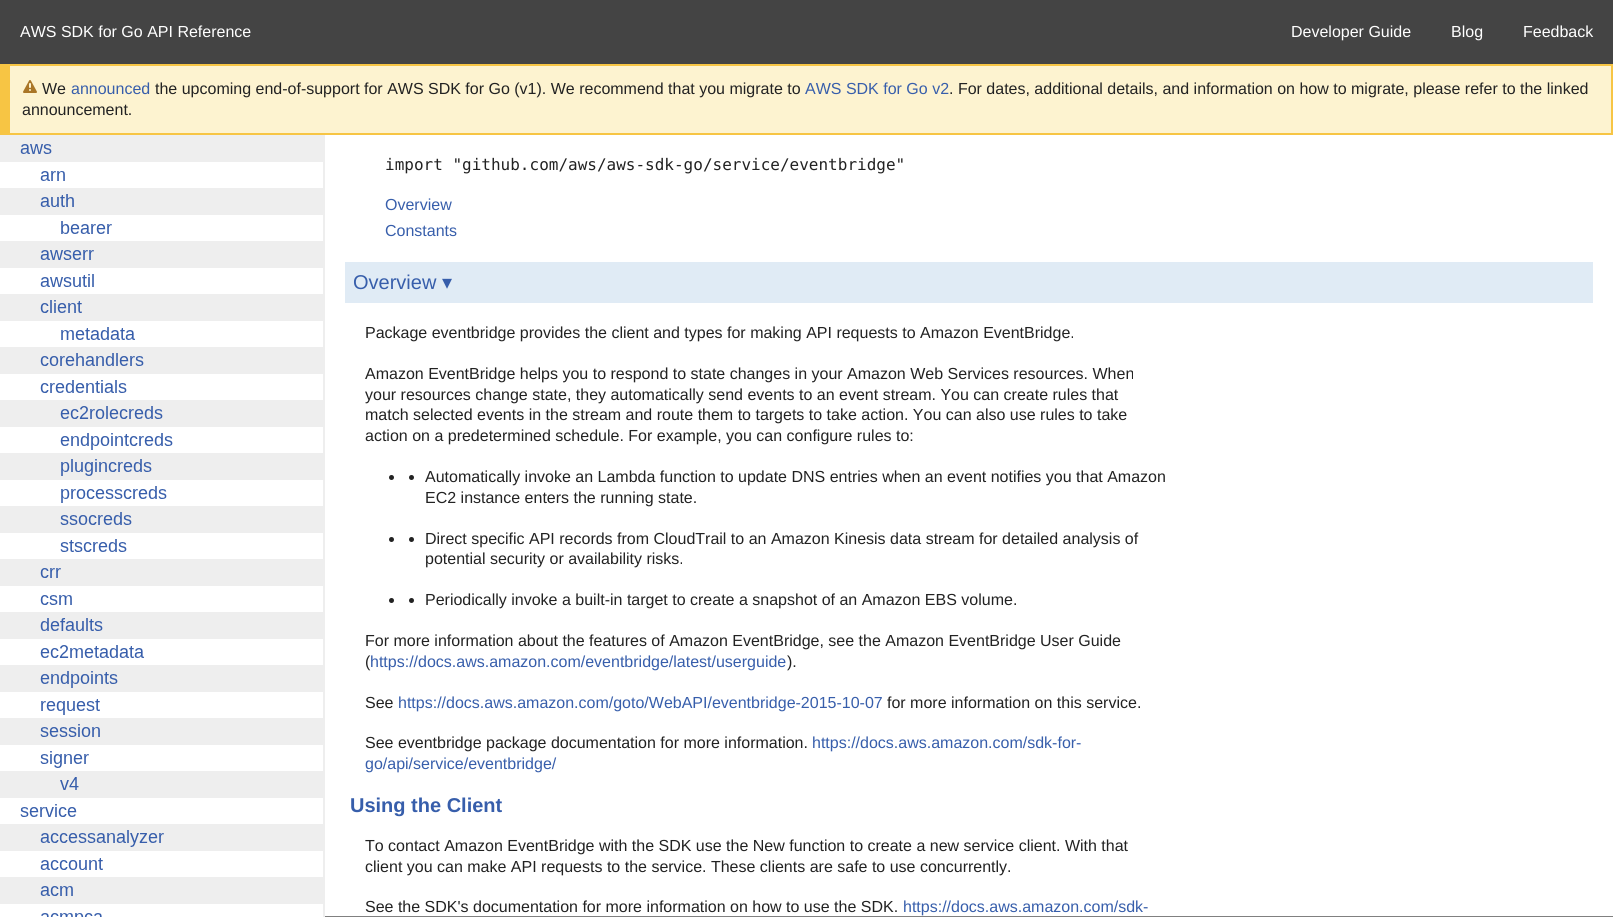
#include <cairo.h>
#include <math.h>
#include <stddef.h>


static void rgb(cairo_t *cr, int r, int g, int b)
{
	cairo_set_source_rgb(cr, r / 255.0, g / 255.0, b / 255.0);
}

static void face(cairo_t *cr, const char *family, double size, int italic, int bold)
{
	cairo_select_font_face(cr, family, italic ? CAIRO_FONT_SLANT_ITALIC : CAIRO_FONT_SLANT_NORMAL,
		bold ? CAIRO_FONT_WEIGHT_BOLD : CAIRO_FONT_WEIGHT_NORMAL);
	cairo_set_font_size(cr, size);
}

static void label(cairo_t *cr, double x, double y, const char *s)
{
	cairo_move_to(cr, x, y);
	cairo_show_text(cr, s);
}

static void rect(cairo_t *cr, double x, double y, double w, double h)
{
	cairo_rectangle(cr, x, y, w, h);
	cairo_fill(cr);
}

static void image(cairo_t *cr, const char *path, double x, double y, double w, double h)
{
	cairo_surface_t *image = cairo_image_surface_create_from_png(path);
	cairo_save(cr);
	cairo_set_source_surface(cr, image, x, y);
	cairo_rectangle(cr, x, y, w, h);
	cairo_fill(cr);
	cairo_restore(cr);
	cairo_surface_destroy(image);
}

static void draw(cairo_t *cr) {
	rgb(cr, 255, 255, 255);
	cairo_paint(cr);
	rgb(cr, 68, 68, 68);
	rect(cr, 0, 0, 1613, 64);
	face(cr, "Liberation Sans", 16, 0, 0);
	rgb(cr, 255, 255, 255);
	label(cr, 20, 37, "AWS SDK for Go API Reference");
	label(cr, 1291, 37, "Developer Guide");
	label(cr, 1451, 37, "Blog");
	label(cr, 1523, 37, "Feedback");
	rgb(cr, 253, 243, 208);
	rect(cr, 10, 66, 1601, 67);
	rgb(cr, 247, 197, 68);
	rect(cr, 10, 64, 1603, 2);
	rect(cr, 1611, 64, 2, 71);
	rect(cr, 10, 133, 1603, 2);
	rect(cr, 0, 64, 10, 71);
	image(cr, "image0.png", 23, 80, 14, 13);
	rgb(cr, 34, 34, 34);
	label(cr, 42, 94, "We");
	rgb(cr, 55, 94, 171);
	label(cr, 71, 94, "announced");
	rgb(cr, 34, 34, 34);
	label(cr, 155, 94, "the upcoming end-of-support for AWS SDK for Go (v1). We recommend that you migrate to");
	rgb(cr, 55, 94, 171);
	label(cr, 805, 94, "AWS SDK for Go v2");
	rgb(cr, 34, 34, 34);
	label(cr, 949, 94, ". For dates, additional details, and information on how to migrate, please refer to the linked");
	label(cr, 22, 115, "announcement.");
	rgb(cr, 238, 238, 238);
	rect(cr, 323, 135, 2, 782);
	image(cr, "image1.png", 0, 135, 323, 782);
	face(cr, "DejaVu Sans Mono", 16, 0, 0);
	rgb(cr, 34, 34, 34);
	label(cr, 385, 170, "import \"github.com/aws/aws-sdk-go/service/eventbridge\"");
	face(cr, "Liberation Sans", 16, 0, 0);
	rgb(cr, 55, 94, 171);
	label(cr, 385, 210, "Overview");
	label(cr, 385, 236, "Constants");
	rgb(cr, 224, 235, 245);
	rect(cr, 345, 262, 1248, 41);
	face(cr, "Liberation Sans", 20, 0, 0);
	rgb(cr, 55, 94, 171);
	label(cr, 353, 289, "Overview");
	face(cr, "DejaVu Sans", 20, 0, 0);
	label(cr, 442, 289, "▾");
	face(cr, "Liberation Sans", 16, 0, 0);
	rgb(cr, 34, 34, 34);
	label(cr, 365, 338, "Package eventbridge provides the client and types for making API requests to Amazon EventBridge.");
	label(cr, 365, 379, "Amazon EventBridge helps you to respond to state changes in your Amazon Web Services resources. When");
	label(cr, 365, 400, "your resources change state, they automatically send events to an event stream. You can create rules that");
	label(cr, 365, 420, "match selected events in the stream and route them to targets to take action. You can also use rules to take");
	label(cr, 365, 441, "action on a predetermined schedule. For example, you can configure rules to:");
	cairo_new_path(cr);
	cairo_arc(cr, 391.5, 477.5, 2.5, 0, 2 * M_PI);
	cairo_fill(cr);
	cairo_arc(cr, 411.5, 477.5, 2.5, 0, 2 * M_PI);
	cairo_fill(cr);
	label(cr, 425, 482, "Automatically invoke an Lambda function to update DNS entries when an event notifies you that Amazon");
	label(cr, 425, 503, "EC2 instance enters the running state.");
	cairo_new_path(cr);
	cairo_arc(cr, 391.5, 539.5, 2.5, 0, 2 * M_PI);
	cairo_fill(cr);
	cairo_arc(cr, 411.5, 539.5, 2.5, 0, 2 * M_PI);
	cairo_fill(cr);
	label(cr, 425, 544, "Direct specific API records from CloudTrail to an Amazon Kinesis data stream for detailed analysis of");
	label(cr, 425, 564, "potential security or availability risks.");
	cairo_new_path(cr);
	cairo_arc(cr, 391.5, 600.5, 2.5, 0, 2 * M_PI);
	cairo_fill(cr);
	cairo_arc(cr, 411.5, 600.5, 2.5, 0, 2 * M_PI);
	cairo_fill(cr);
	label(cr, 425, 605, "Periodically invoke a built-in target to create a snapshot of an Amazon EBS volume.");
	label(cr, 365, 646, "For more information about the features of Amazon EventBridge, see the Amazon EventBridge User Guide");
	label(cr, 365, 667, "(");
	rgb(cr, 55, 94, 171);
	label(cr, 370, 667, "https://docs.aws.amazon.com/eventbridge/latest/userguide");
	rgb(cr, 34, 34, 34);
	label(cr, 787, 667, ").");
	label(cr, 365, 708, "See");
	rgb(cr, 55, 94, 171);
	label(cr, 398, 708, "https://docs.aws.amazon.com/goto/WebAPI/eventbridge-2015-10-07");
	rgb(cr, 34, 34, 34);
	label(cr, 887, 708, "for more information on this service.");
	label(cr, 365, 748, "See eventbridge package documentation for more information.");
	rgb(cr, 55, 94, 171);
	label(cr, 812, 748, "https://docs.aws.amazon.com/sdk-for-");
	label(cr, 365, 769, "go/api/service/eventbridge/");
	face(cr, "Liberation Sans", 20, 0, 1);
	label(cr, 350, 812, "Using the Client");
	face(cr, "Liberation Sans", 16, 0, 0);
	rgb(cr, 34, 34, 34);
	label(cr, 365, 851, "To contact Amazon EventBridge with the SDK use the New function to create a new service client. With that");
	label(cr, 365, 872, "client you can make API requests to the service. These clients are safe to use concurrently.");
	label(cr, 365, 912, "See the SDK's documentation for more information on how to use the SDK.");
	rgb(cr, 55, 94, 171);
	label(cr, 903, 912, "https://docs.aws.amazon.com/sdk-");
	rgb(cr, 128, 128, 128);
	rect(cr, 325, 916, 1288, 1);
}

int main(void) {
	cairo_surface_t *surface = cairo_image_surface_create(CAIRO_FORMAT_RGB24, 1613, 917);
	cairo_t *cr = cairo_create(surface);
	cairo_font_options_t *options = cairo_font_options_create();
	cairo_font_options_set_hint_metrics(options, CAIRO_HINT_METRICS_OFF);
	cairo_font_options_set_hint_style(options, CAIRO_HINT_STYLE_NONE);
	cairo_set_font_options(cr, options);
	cairo_set_miter_limit(cr, 4);
	draw(cr);
	cairo_surface_write_to_png(surface, "render.png");
	cairo_font_options_destroy(options);
	cairo_destroy(cr);
	cairo_surface_destroy(surface);
	return 0;
}
